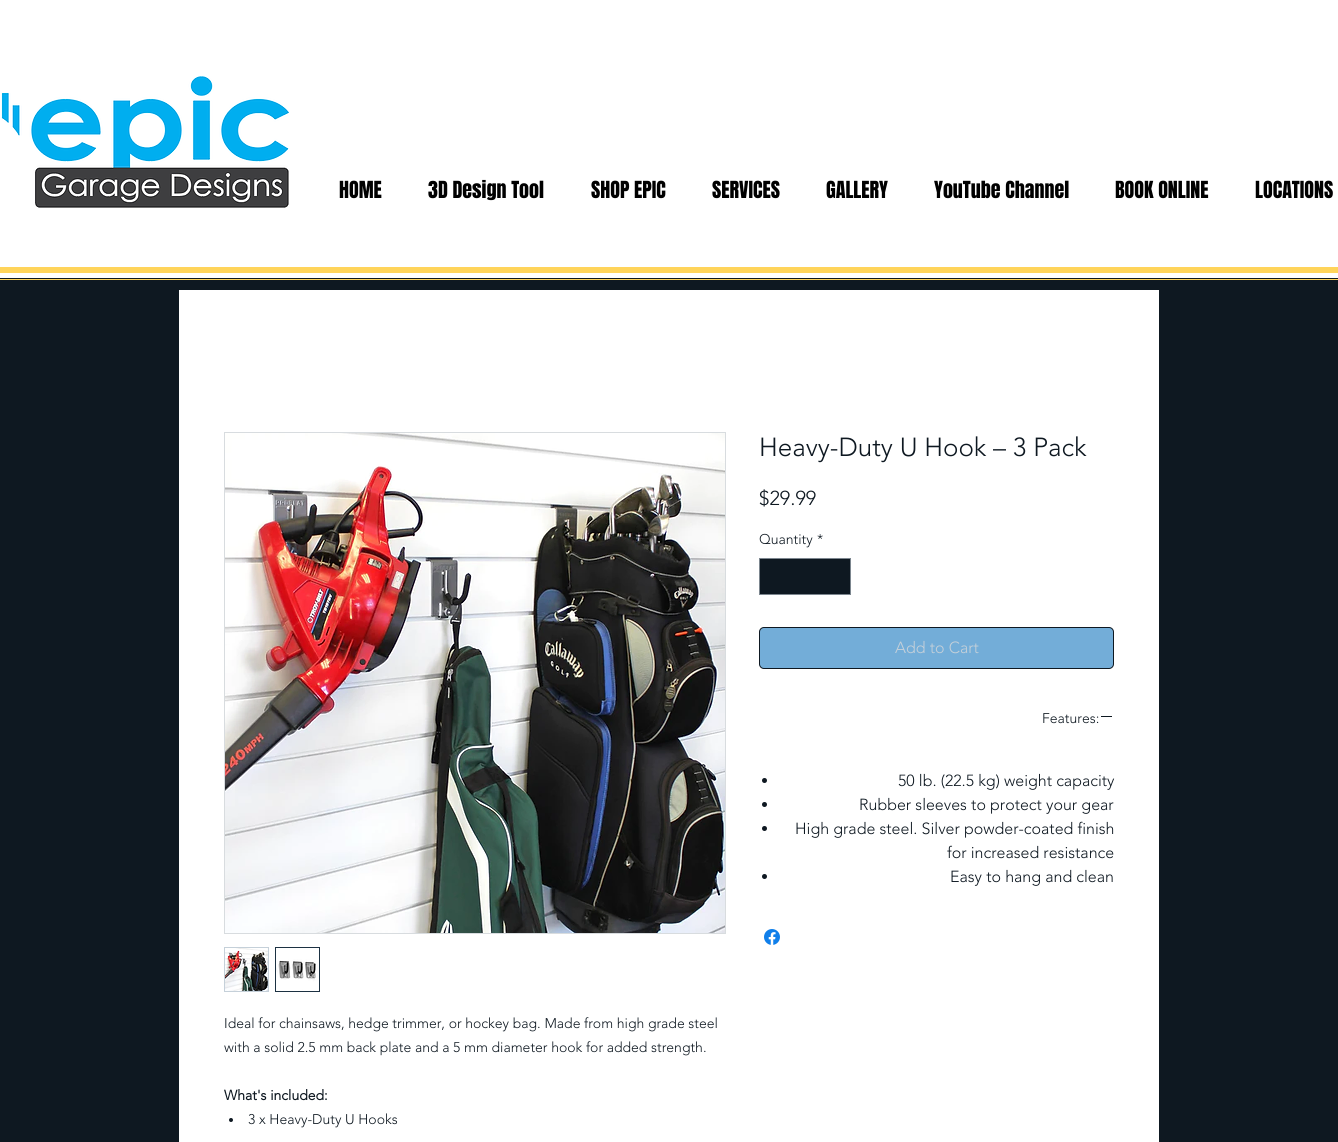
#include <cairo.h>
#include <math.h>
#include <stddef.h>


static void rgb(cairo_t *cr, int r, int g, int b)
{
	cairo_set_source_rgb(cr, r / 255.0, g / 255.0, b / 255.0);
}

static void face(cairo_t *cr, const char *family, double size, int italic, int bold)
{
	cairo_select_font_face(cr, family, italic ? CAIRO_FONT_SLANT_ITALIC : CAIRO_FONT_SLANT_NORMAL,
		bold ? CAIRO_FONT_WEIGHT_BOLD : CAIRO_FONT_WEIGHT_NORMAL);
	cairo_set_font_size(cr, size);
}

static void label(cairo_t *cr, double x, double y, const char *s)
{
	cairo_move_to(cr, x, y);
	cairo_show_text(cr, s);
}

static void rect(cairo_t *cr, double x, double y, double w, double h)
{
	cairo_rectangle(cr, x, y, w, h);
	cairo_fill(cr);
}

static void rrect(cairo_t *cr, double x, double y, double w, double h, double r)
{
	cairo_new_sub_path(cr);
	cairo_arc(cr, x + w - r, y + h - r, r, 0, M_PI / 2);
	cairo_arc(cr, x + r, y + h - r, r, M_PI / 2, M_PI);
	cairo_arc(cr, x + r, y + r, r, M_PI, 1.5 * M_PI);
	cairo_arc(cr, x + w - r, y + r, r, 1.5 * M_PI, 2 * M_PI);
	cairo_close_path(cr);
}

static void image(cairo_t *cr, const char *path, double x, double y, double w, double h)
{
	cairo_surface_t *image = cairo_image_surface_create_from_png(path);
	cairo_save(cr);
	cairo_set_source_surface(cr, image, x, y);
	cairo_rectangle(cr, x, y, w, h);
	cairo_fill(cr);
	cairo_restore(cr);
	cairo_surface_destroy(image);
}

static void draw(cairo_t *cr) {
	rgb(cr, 14, 24, 33);
	cairo_paint(cr);
	rgb(cr, 255, 255, 255);
	rect(cr, 0, 0, 1338, 278);
	image(cr, "image0.png", 1, 76, 288, 132);
	face(cr, "Anton", 20, 0, 0);
	rgb(cr, 0, 0, 0);
	label(cr, 339, 198, "HOME");
	label(cr, 428, 198, "3D Design Tool");
	label(cr, 591, 198, "SHOP EPIC");
	label(cr, 712, 198, "SERVICES");
	label(cr, 826, 198, "GALLERY");
	label(cr, 934, 198, "YouTube Channel");
	label(cr, 1115, 198, "BOOK ONLINE");
	label(cr, 1255, 198, "LOCATIONS");
	rgb(cr, 255, 212, 90);
	rect(cr, 0, 267, 1338, 6);
	rect(cr, 0, 279, 1338, 1);
	rgb(cr, 255, 255, 255);
	rect(cr, 179, 290, 980, 852);
	face(cr, "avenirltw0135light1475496 Light", 26, 0, 0);
	rgb(cr, 14, 24, 33);
	label(cr, 759, 456, "Heavy-Duty U Hook – 3 Pack");
	face(cr, "avenirltw0135light1475496 Light", 20, 0, 0);
	label(cr, 759, 505, "$29.99");
	face(cr, "avenirltw0135light1475496 Light", 14, 0, 0);
	label(cr, 759, 544, "Quantity");
	label(cr, 817, 544, "*");
	cairo_rectangle(cr, 759.5, 558.5, 91, 36);
	cairo_fill_preserve(cr);
	rgb(cr, 124, 134, 143);
	cairo_set_line_width(cr, 1);
	cairo_stroke(cr);
	rgb(cr, 115, 173, 216);
	rrect(cr, 759.5, 627.5, 354, 41, 4.5);
	cairo_fill_preserve(cr);
	rgb(cr, 14, 24, 33);
	cairo_stroke(cr);
	face(cr, "avenirltw0135light1475496 Light", 16, 0, 0);
	rgb(cr, 197, 208, 217);
	label(cr, 895, 653, "Add to Cart");
	face(cr, "avenirltw0135light1475496 Light", 14, 0, 0);
	rgb(cr, 14, 24, 33);
	label(cr, 1042, 723, "Features:");
	rect(cr, 1101, 716, 11, 1);
	cairo_new_path(cr);
	cairo_arc(cr, 764.5, 780.5, 2.5, 0, 2 * M_PI);
	cairo_fill(cr);
	face(cr, "avenirltw0135light1475496 Light", 16, 0, 0);
	label(cr, 898, 786, "50 lb. (22.5 kg) weight capacity");
	cairo_new_path(cr);
	cairo_arc(cr, 764.5, 804.5, 2.5, 0, 2 * M_PI);
	cairo_fill(cr);
	label(cr, 859, 810, "Rubber sleeves to protect your gear");
	cairo_new_path(cr);
	cairo_arc(cr, 764.5, 828.5, 2.5, 0, 2 * M_PI);
	cairo_fill(cr);
	label(cr, 795, 834, "High grade steel. Silver powder-coated finish");
	label(cr, 947, 858, "for increased resistance");
	cairo_new_path(cr);
	cairo_arc(cr, 764.5, 876.5, 2.5, 0, 2 * M_PI);
	cairo_fill(cr);
	label(cr, 950, 882, "Easy to hang and clean");
	image(cr, "image1.png", 764, 929, 16, 16);
	cairo_rectangle(cr, 224.5, 432.5, 501, 501);
	rgb(cr, 216, 220, 223);
	cairo_stroke(cr);
	image(cr, "image2.png", 225, 433, 500, 500);
	cairo_rectangle(cr, 224.5, 947.5, 44, 44);
	rgb(cr, 197, 208, 217);
	cairo_stroke(cr);
	image(cr, "image3.png", 225, 948, 43, 43);
	rgb(cr, 28, 49, 66);
	rect(cr, 275, 947, 45, 45);
	image(cr, "image4.png", 276, 948, 43, 43);
	face(cr, "avenirltw0135light1475496 Light", 14, 0, 0);
	rgb(cr, 14, 24, 33);
	label(cr, 224, 1028, "Ideal for chainsaws, hedge trimmer, or hockey bag. Made from high grade steel");
	label(cr, 224, 1052, "with a solid 2.5 mm back plate and a 5 mm diameter hook for added strength.");
	face(cr, "avenirltw0135light1475496", 14, 0, 1);
	label(cr, 224, 1100, "What's included:");
	cairo_new_path(cr);
	cairo_arc(cr, 231, 1120, 2, 0, 2 * M_PI);
	cairo_fill(cr);
	face(cr, "avenirltw0135light1475496 Light", 14, 0, 0);
	label(cr, 248, 1124, "3 x Heavy-Duty U Hooks");
}

int main(void) {
	cairo_surface_t *surface = cairo_image_surface_create(CAIRO_FORMAT_RGB24, 1338, 1142);
	cairo_t *cr = cairo_create(surface);
	cairo_font_options_t *options = cairo_font_options_create();
	cairo_font_options_set_hint_metrics(options, CAIRO_HINT_METRICS_OFF);
	cairo_font_options_set_hint_style(options, CAIRO_HINT_STYLE_NONE);
	cairo_set_font_options(cr, options);
	cairo_set_miter_limit(cr, 4);
	draw(cr);
	cairo_surface_write_to_png(surface, "render.png");
	cairo_font_options_destroy(options);
	cairo_destroy(cr);
	cairo_surface_destroy(surface);
	return 0;
}
